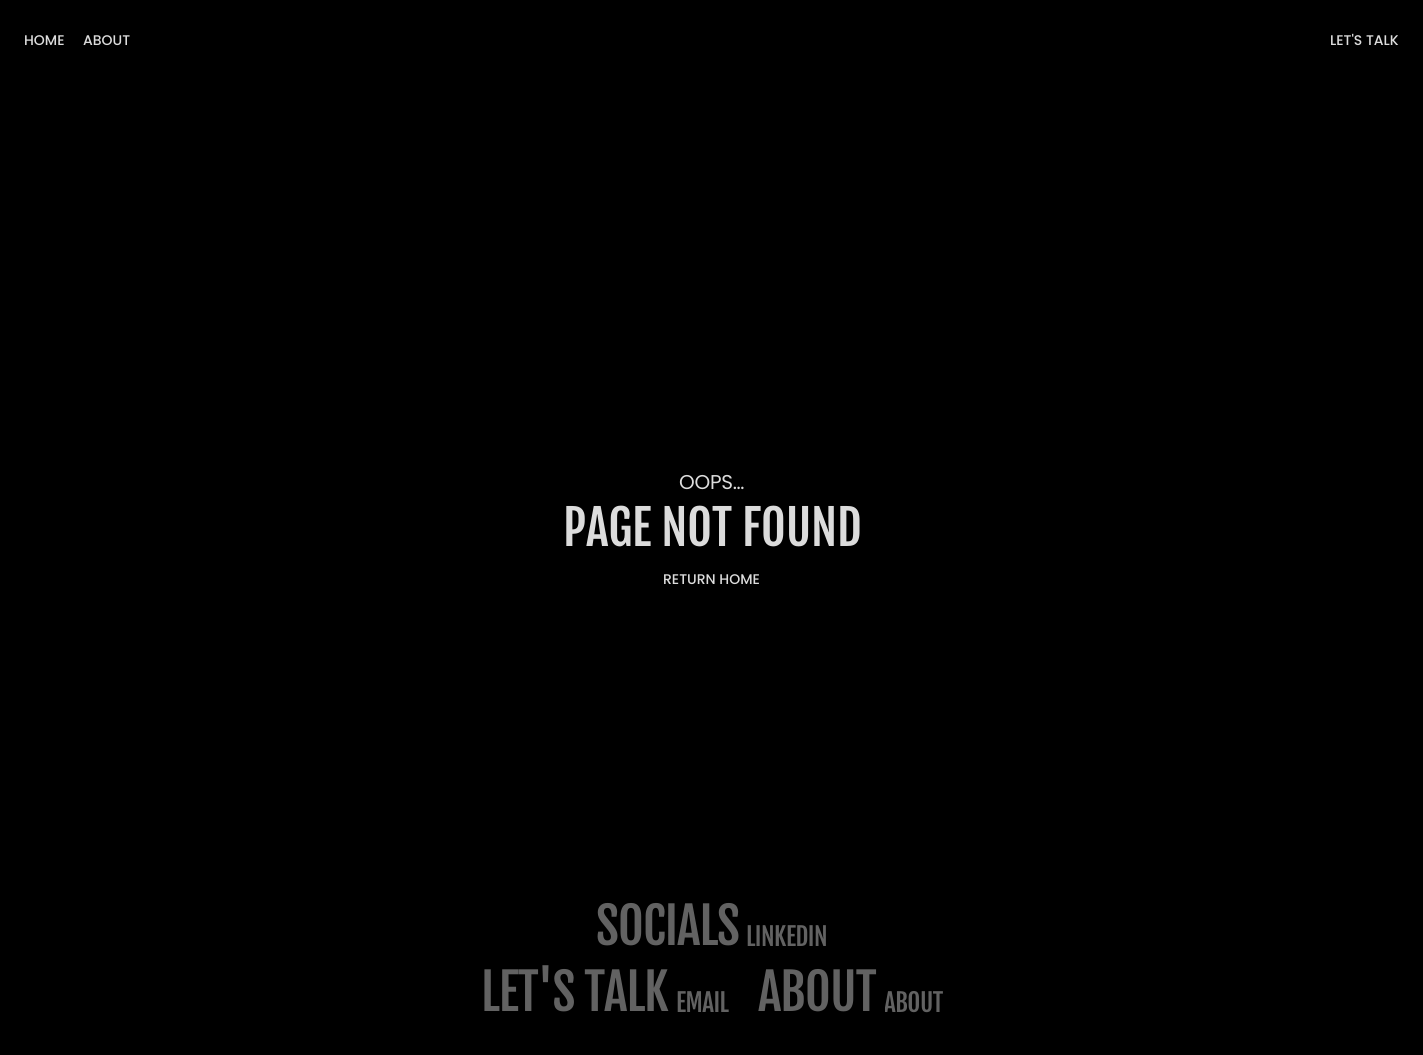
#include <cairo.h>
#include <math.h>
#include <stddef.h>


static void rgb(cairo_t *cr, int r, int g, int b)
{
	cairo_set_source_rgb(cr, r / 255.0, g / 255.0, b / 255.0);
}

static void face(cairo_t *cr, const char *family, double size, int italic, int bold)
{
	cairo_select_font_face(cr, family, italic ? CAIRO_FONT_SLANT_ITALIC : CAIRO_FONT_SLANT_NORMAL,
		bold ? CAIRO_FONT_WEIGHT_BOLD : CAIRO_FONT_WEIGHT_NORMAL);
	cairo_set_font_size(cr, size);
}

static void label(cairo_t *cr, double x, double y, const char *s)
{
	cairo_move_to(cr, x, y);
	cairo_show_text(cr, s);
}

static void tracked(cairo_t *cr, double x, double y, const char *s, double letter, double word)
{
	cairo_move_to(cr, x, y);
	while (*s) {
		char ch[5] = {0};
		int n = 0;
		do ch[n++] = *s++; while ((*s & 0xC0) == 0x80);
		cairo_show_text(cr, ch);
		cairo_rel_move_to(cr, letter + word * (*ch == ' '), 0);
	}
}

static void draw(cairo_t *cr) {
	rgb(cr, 0, 0, 0);
	cairo_paint(cr);
	face(cr, "Poppins Medium", 14, 0, 0);
	rgb(cr, 220, 220, 220);
	label(cr, 24, 45, "HOME");
	label(cr, 83, 45, "ABOUT");
	label(cr, 1330, 45, "LET'S TALK");
	face(cr, "Poppins", 20, 0, 0);
	tracked(cr, 679, 489, "OOPS…", -0.25, 0);
	face(cr, "Fjalla One", 48, 0, 0);
	tracked(cr, 563, 546, "PAGE NOT FOUND", -0.25, 0);
	face(cr, "Poppins Medium", 14, 0, 0);
	label(cr, 663, 584, "RETURN HOME");
	face(cr, "Fjalla One", 50, 0, 0);
	rgb(cr, 98, 98, 98);
	tracked(cr, 596, 945, "SOCIALS", -1, 0);
	face(cr, "Fjalla One", 25, 0, 0);
	tracked(cr, 746, 946, "LINKEDIN", -0.5, 0);
	face(cr, "Fjalla One", 50, 0, 0);
	tracked(cr, 481, 1011, "LET'S TALK", -1, 0);
	face(cr, "Fjalla One", 25, 0, 0);
	tracked(cr, 676, 1012, "EMAIL", -0.5, 0);
	face(cr, "Fjalla One", 50, 0, 0);
	tracked(cr, 758, 1011, "ABOUT", -1, 0);
	cairo_save(cr);
	cairo_rectangle(cr, 885, 987, 58, 30);
	cairo_clip(cr);
	face(cr, "Fjalla One", 25, 0, 0);
	tracked(cr, 884, 1012, "ABOUT", -0.5, 0);
	cairo_restore(cr);
}

int main(void) {
	cairo_surface_t *surface = cairo_image_surface_create(CAIRO_FORMAT_RGB24, 1423, 1055);
	cairo_t *cr = cairo_create(surface);
	cairo_font_options_t *options = cairo_font_options_create();
	cairo_font_options_set_hint_metrics(options, CAIRO_HINT_METRICS_OFF);
	cairo_font_options_set_hint_style(options, CAIRO_HINT_STYLE_NONE);
	cairo_set_font_options(cr, options);
	cairo_set_miter_limit(cr, 4);
	draw(cr);
	cairo_surface_write_to_png(surface, "render.png");
	cairo_font_options_destroy(options);
	cairo_destroy(cr);
	cairo_surface_destroy(surface);
	return 0;
}
